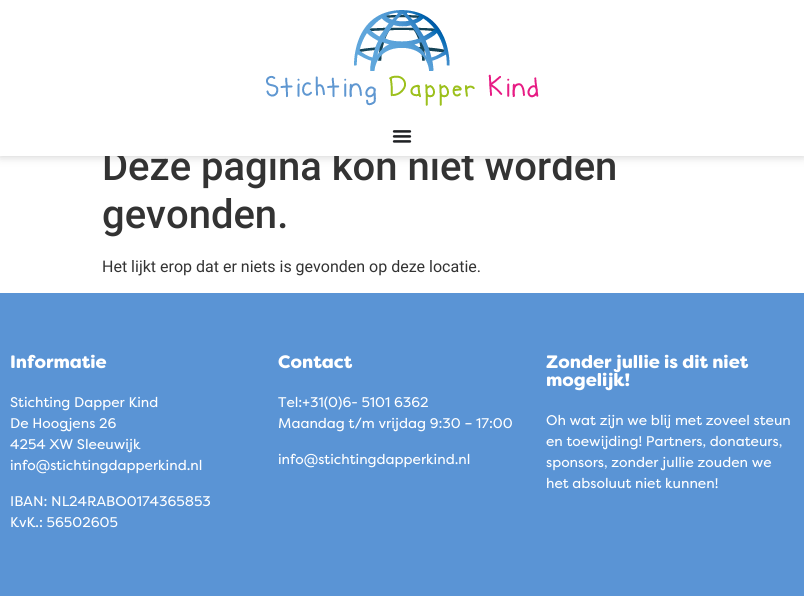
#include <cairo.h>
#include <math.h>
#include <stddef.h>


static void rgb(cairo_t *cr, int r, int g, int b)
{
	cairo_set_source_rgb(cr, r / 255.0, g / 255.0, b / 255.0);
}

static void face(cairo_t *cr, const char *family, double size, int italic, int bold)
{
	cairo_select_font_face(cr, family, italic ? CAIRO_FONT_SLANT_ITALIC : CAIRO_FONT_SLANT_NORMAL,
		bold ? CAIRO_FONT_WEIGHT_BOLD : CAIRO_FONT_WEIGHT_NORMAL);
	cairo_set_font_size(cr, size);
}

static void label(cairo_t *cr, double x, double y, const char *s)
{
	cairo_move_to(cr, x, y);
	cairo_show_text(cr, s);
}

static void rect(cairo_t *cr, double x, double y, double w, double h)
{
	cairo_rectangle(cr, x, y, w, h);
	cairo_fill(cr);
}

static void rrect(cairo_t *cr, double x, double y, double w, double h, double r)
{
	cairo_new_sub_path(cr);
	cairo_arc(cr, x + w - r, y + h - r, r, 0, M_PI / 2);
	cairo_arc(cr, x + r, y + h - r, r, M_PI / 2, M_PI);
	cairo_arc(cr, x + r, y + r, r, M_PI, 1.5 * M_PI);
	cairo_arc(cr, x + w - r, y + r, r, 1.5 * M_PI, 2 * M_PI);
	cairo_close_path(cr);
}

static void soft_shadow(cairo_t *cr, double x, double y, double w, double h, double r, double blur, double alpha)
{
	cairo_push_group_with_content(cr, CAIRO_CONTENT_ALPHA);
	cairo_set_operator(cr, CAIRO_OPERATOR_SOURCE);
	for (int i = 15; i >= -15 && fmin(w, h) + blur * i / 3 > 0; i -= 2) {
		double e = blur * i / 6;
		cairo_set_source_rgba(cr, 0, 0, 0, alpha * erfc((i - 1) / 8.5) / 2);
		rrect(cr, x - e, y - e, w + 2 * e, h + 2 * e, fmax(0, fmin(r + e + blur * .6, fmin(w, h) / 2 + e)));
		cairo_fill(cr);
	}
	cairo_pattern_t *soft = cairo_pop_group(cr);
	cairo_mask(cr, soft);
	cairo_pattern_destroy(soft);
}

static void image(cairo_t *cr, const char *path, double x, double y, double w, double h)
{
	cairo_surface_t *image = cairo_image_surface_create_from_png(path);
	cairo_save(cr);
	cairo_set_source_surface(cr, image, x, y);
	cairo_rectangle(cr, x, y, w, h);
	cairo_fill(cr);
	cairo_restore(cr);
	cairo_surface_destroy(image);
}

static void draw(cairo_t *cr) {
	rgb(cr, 255, 255, 255);
	cairo_paint(cr);
	rgb(cr, 0, 0, 0);
	soft_shadow(cr, 0, 0, 804, 156, 0, 5, 0.21);
	face(cr, "Roboto Medium", 40, 0, 0);
	rgb(cr, 51, 51, 51);
	label(cr, 102, 180, "Deze pagina kon niet worden");
	rgb(cr, 255, 255, 255);
	rect(cr, 0, 0, 804, 156);
	image(cr, "image0.png", 266, 10, 273, 96);
	image(cr, "image1.png", 392, 130, 20, 13);
	rgb(cr, 51, 51, 51);
	label(cr, 102, 228, "gevonden.");
	face(cr, "Roboto", 16, 0, 0);
	label(cr, 102, 272, "Het lijkt erop dat er niets is gevonden op deze locatie.");
	rgb(cr, 90, 148, 213);
	rect(cr, 0, 293, 804, 303);
	face(cr, "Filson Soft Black", 18, 0, 0);
	rgb(cr, 255, 255, 255);
	label(cr, 10, 368, "Informatie");
	face(cr, "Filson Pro", 14, 0, 0);
	label(cr, 10, 407, "Stichting Dapper Kind");
	label(cr, 10, 428, "De Hoogjens 26");
	label(cr, 10, 449, "4254 XW Sleeuwijk");
	label(cr, 10, 470, "info@stichtingdapperkind.nl");
	label(cr, 10, 506, "IBAN: NL24RABO0174365853");
	label(cr, 10, 527, "KvK.: 56502605");
	face(cr, "Filson Soft Black", 18, 0, 0);
	label(cr, 278, 368, "Contact");
	face(cr, "Filson Pro", 14, 0, 0);
	label(cr, 278, 407, "Tel:+31(0)6- 5101 6362");
	label(cr, 278, 428, "Maandag t/m vrijdag 9:30 – 17:00");
	label(cr, 278, 464, "info@stichtingdapperkind.nl");
	face(cr, "Filson Soft Black", 18, 0, 0);
	label(cr, 546, 368, "Zonder jullie is dit niet");
	label(cr, 546, 386, "mogelijk!");
	face(cr, "Filson Pro", 14, 0, 0);
	label(cr, 546, 425, "Oh wat zijn we blij met zoveel steun");
	label(cr, 546, 446, "en toewijding! Partners, donateurs,");
	label(cr, 546, 467, "sponsors, zonder jullie zouden we");
	label(cr, 546, 488, "het absoluut niet kunnen!");
}

int main(void) {
	cairo_surface_t *surface = cairo_image_surface_create(CAIRO_FORMAT_RGB24, 804, 596);
	cairo_t *cr = cairo_create(surface);
	cairo_font_options_t *options = cairo_font_options_create();
	cairo_font_options_set_hint_metrics(options, CAIRO_HINT_METRICS_OFF);
	cairo_font_options_set_hint_style(options, CAIRO_HINT_STYLE_NONE);
	cairo_set_font_options(cr, options);
	cairo_set_miter_limit(cr, 4);
	draw(cr);
	cairo_surface_write_to_png(surface, "render.png");
	cairo_font_options_destroy(options);
	cairo_destroy(cr);
	cairo_surface_destroy(surface);
	return 0;
}
